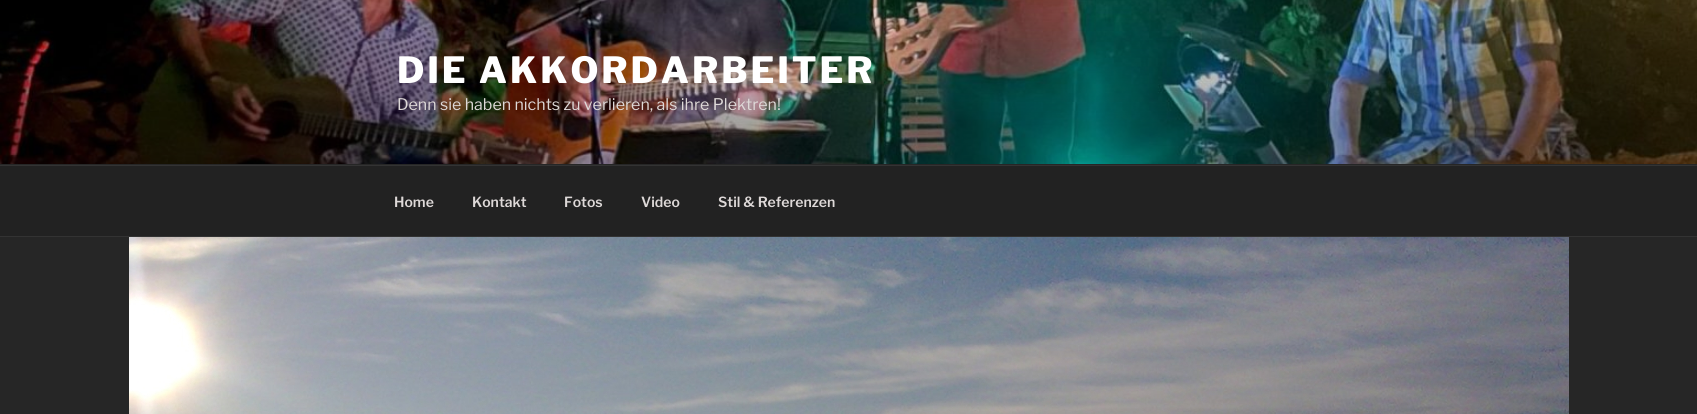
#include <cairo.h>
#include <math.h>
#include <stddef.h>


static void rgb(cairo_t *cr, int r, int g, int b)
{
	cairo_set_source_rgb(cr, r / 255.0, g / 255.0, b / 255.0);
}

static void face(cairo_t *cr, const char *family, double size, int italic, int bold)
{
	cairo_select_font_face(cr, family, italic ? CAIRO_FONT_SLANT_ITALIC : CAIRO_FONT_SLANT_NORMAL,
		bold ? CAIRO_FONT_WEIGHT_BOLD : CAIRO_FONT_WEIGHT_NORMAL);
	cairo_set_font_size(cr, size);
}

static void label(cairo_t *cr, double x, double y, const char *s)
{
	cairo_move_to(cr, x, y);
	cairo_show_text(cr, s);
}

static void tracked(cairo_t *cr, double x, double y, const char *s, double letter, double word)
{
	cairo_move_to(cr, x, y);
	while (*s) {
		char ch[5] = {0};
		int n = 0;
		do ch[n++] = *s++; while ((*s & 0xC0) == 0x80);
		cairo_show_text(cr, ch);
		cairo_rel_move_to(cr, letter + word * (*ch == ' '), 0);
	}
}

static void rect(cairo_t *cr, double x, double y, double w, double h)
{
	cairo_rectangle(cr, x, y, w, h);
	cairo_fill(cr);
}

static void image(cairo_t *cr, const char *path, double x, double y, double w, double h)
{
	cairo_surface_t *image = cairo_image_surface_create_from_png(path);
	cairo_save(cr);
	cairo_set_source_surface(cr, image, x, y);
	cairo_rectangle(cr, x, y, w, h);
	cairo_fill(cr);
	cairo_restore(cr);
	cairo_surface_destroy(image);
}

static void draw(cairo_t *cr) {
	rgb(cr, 38, 38, 38);
	cairo_paint(cr);
	image(cr, "image0.png", 0, 0, 1697, 164);
	face(cr, "Libre Franklin Thin", 36, 0, 0);
	rgb(cr, 255, 255, 255);
	tracked(cr, 397, 83, "DIE AKKORDARBEITER", 2.9, 0);
	face(cr, "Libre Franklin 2 Thin", 16, 0, 0);
	rgb(cr, 222, 217, 216);
	label(cr, 397, 110, "Denn sie haben nichts zu verlieren, als ihre Plektren!");
	rgb(cr, 34, 34, 34);
	rect(cr, 0, 166, 1697, 70);
	rgb(cr, 51, 51, 51);
	rect(cr, 0, 165, 1697, 1);
	rect(cr, 0, 236, 1697, 1);
	face(cr, "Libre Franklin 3 Thin", 14, 0, 0);
	rgb(cr, 222, 217, 216);
	label(cr, 394, 207, "Home");
	label(cr, 472, 207, "Kontakt");
	label(cr, 564, 207, "Fotos");
	label(cr, 641, 207, "Video");
	label(cr, 718, 207, "Stil & Referenzen");
	image(cr, "image1.png", 129, 237, 1440, 177);
}

int main(void) {
	cairo_surface_t *surface = cairo_image_surface_create(CAIRO_FORMAT_RGB24, 1697, 414);
	cairo_t *cr = cairo_create(surface);
	cairo_font_options_t *options = cairo_font_options_create();
	cairo_font_options_set_hint_metrics(options, CAIRO_HINT_METRICS_OFF);
	cairo_font_options_set_hint_style(options, CAIRO_HINT_STYLE_NONE);
	cairo_set_font_options(cr, options);
	cairo_set_miter_limit(cr, 4);
	draw(cr);
	cairo_surface_write_to_png(surface, "render.png");
	cairo_font_options_destroy(options);
	cairo_destroy(cr);
	cairo_surface_destroy(surface);
	return 0;
}
